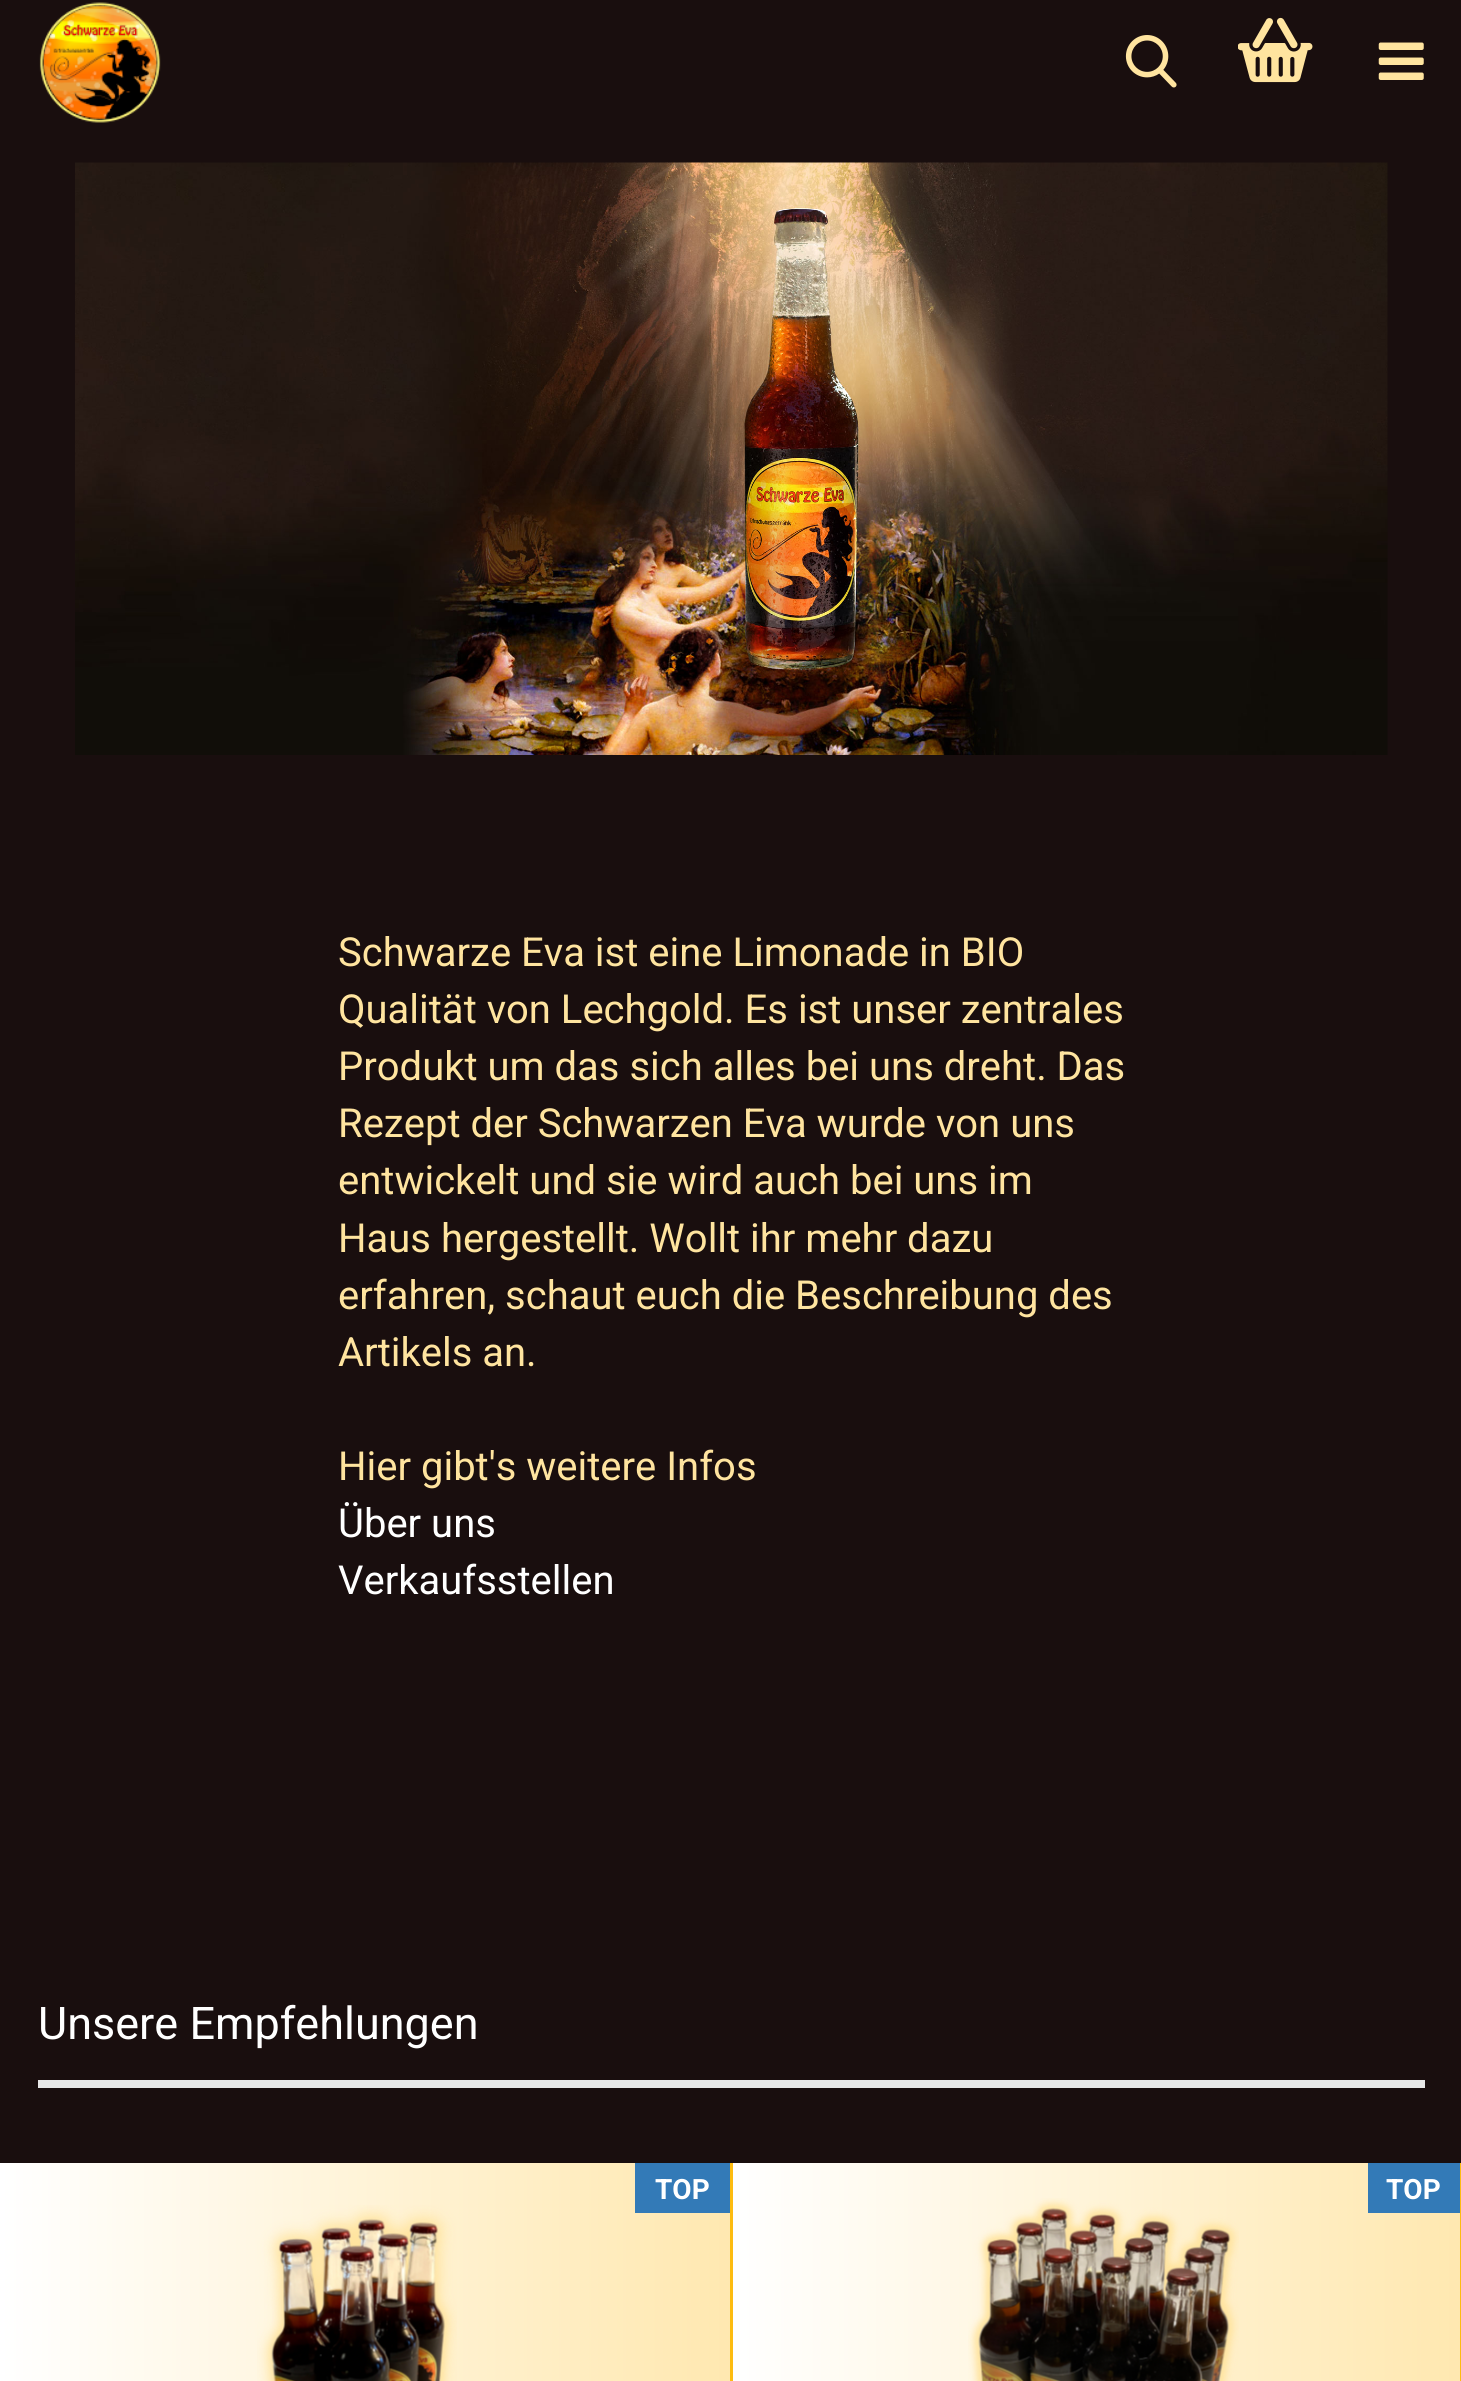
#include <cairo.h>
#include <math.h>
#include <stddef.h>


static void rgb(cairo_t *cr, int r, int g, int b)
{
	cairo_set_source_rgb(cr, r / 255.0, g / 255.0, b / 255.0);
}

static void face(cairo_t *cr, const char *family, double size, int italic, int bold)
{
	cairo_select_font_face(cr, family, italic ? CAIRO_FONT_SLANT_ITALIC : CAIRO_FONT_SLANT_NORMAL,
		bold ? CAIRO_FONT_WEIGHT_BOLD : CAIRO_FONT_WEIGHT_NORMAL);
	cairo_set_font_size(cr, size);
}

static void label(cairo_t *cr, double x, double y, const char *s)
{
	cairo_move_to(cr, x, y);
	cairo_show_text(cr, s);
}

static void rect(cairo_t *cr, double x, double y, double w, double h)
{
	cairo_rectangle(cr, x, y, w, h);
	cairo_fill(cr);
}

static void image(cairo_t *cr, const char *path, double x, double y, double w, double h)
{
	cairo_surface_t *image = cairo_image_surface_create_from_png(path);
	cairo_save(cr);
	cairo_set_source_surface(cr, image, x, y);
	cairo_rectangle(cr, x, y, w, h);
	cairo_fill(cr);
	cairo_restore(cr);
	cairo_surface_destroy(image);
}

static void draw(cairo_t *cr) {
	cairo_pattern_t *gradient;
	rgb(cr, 25, 14, 14);
	cairo_paint(cr);
	image(cr, "image0.png", 39, 2, 122, 121);
	image(cr, "image1.png", 1125, 35, 52, 53);
	image(cr, "image2.png", 1238, 17, 75, 66);
	image(cr, "image3.png", 1378, 42, 46, 38);
	image(cr, "image4.png", 75, 162, 1313, 593);
	face(cr, "Roboto", 40, 0, 0);
	rgb(cr, 255, 228, 159);
	label(cr, 338, 966, "Schwarze Eva ist eine Limonade in BIO");
	label(cr, 338, 1023, "Qualität von Lechgold. Es ist unser zentrales");
	label(cr, 338, 1080, "Produkt um das sich alles bei uns dreht. Das");
	label(cr, 338, 1137, "Rezept der Schwarzen Eva wurde von uns");
	label(cr, 338, 1194, "entwickelt und sie wird auch bei uns im");
	label(cr, 338, 1252, "Haus hergestellt. Wollt ihr mehr dazu");
	label(cr, 338, 1309, "erfahren, schaut euch die Beschreibung des");
	label(cr, 338, 1366, "Artikels an.");
	label(cr, 338, 1480, "Hier gibt's weitere Infos");
	rgb(cr, 255, 255, 255);
	label(cr, 338, 1537, "Über uns");
	label(cr, 338, 1594, "Verkaufsstellen");
	rgb(cr, 231, 231, 231);
	rect(cr, 38, 2080, 1387, 8);
	face(cr, "Roboto", 45, 0, 0);
	rgb(cr, 255, 255, 255);
	label(cr, 38, 2039, "Unsere Empfehlungen");
	gradient = cairo_pattern_create_linear(0, 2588, 733, 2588);
	cairo_pattern_add_color_stop_rgba(gradient, 0, 1, 1, 1, 1);
	cairo_pattern_add_color_stop_rgba(gradient, 1, 1, 0.91, 0.69, 1);
	cairo_set_source(cr, gradient);
	cairo_pattern_destroy(gradient);
	rect(cr, 0, 2163, 730, 218);
	rgb(cr, 253, 188, 16);
	rect(cr, 730, 2163, 3, 218);
	rgb(cr, 51, 122, 183);
	rect(cr, 635, 2163, 95, 50);
	face(cr, "Roboto", 28, 0, 1);
	rgb(cr, 255, 255, 255);
	label(cr, 655, 2199, "TOP");
	image(cr, "image5.png", 257, 2205, 200, 176);
	gradient = cairo_pattern_create_linear(733, 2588, 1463, 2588);
	cairo_pattern_add_color_stop_rgba(gradient, 0, 1, 1, 1, 1);
	cairo_pattern_add_color_stop_rgba(gradient, 1, 1, 0.91, 0.69, 1);
	cairo_set_source(cr, gradient);
	cairo_pattern_destroy(gradient);
	rect(cr, 733, 2163, 727, 218);
	rgb(cr, 253, 188, 16);
	rect(cr, 1460, 2163, 1, 218);
	rgb(cr, 51, 122, 183);
	rect(cr, 1368, 2163, 92, 50);
	rgb(cr, 255, 255, 255);
	label(cr, 1386, 2199, "TOP");
	image(cr, "image6.png", 968, 2198, 271, 183);
}

int main(void) {
	cairo_surface_t *surface = cairo_image_surface_create(CAIRO_FORMAT_RGB24, 1461, 2381);
	cairo_t *cr = cairo_create(surface);
	cairo_font_options_t *options = cairo_font_options_create();
	cairo_font_options_set_hint_metrics(options, CAIRO_HINT_METRICS_OFF);
	cairo_font_options_set_hint_style(options, CAIRO_HINT_STYLE_NONE);
	cairo_set_font_options(cr, options);
	cairo_set_miter_limit(cr, 4);
	draw(cr);
	cairo_surface_write_to_png(surface, "render.png");
	cairo_font_options_destroy(options);
	cairo_destroy(cr);
	cairo_surface_destroy(surface);
	return 0;
}
